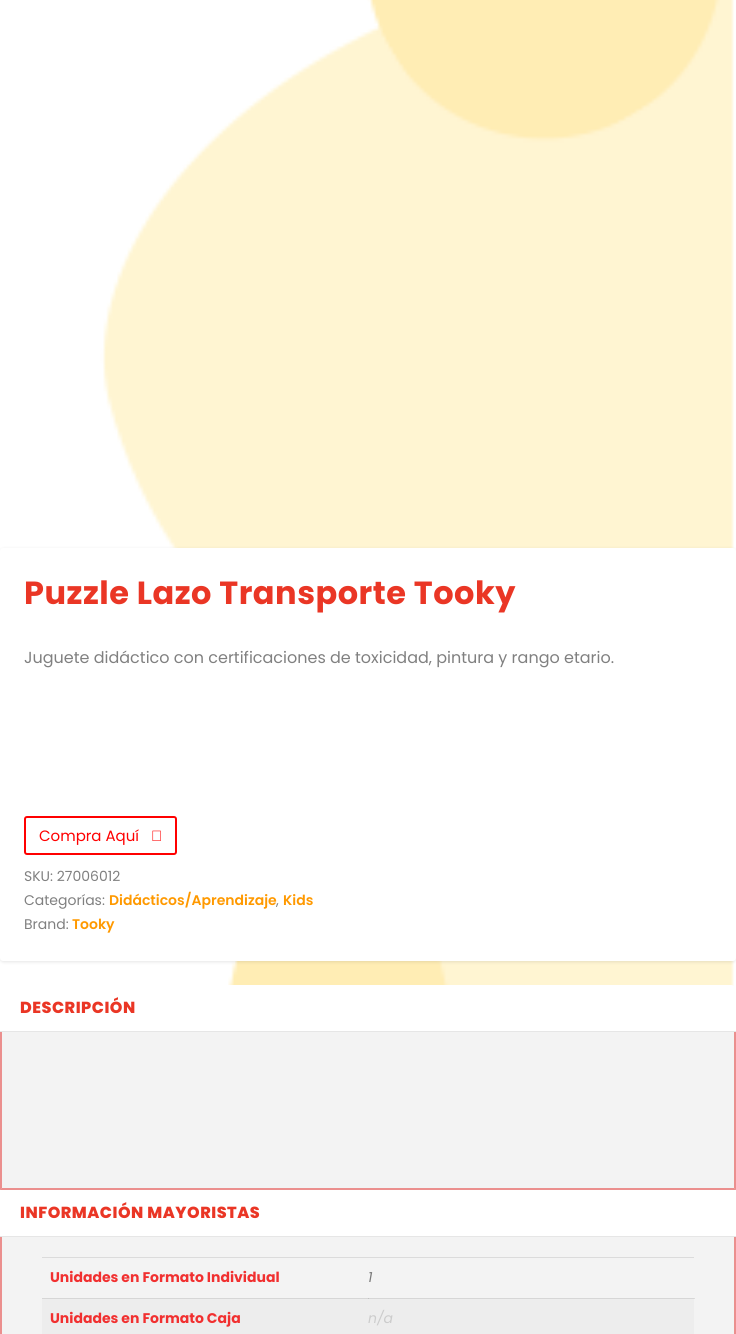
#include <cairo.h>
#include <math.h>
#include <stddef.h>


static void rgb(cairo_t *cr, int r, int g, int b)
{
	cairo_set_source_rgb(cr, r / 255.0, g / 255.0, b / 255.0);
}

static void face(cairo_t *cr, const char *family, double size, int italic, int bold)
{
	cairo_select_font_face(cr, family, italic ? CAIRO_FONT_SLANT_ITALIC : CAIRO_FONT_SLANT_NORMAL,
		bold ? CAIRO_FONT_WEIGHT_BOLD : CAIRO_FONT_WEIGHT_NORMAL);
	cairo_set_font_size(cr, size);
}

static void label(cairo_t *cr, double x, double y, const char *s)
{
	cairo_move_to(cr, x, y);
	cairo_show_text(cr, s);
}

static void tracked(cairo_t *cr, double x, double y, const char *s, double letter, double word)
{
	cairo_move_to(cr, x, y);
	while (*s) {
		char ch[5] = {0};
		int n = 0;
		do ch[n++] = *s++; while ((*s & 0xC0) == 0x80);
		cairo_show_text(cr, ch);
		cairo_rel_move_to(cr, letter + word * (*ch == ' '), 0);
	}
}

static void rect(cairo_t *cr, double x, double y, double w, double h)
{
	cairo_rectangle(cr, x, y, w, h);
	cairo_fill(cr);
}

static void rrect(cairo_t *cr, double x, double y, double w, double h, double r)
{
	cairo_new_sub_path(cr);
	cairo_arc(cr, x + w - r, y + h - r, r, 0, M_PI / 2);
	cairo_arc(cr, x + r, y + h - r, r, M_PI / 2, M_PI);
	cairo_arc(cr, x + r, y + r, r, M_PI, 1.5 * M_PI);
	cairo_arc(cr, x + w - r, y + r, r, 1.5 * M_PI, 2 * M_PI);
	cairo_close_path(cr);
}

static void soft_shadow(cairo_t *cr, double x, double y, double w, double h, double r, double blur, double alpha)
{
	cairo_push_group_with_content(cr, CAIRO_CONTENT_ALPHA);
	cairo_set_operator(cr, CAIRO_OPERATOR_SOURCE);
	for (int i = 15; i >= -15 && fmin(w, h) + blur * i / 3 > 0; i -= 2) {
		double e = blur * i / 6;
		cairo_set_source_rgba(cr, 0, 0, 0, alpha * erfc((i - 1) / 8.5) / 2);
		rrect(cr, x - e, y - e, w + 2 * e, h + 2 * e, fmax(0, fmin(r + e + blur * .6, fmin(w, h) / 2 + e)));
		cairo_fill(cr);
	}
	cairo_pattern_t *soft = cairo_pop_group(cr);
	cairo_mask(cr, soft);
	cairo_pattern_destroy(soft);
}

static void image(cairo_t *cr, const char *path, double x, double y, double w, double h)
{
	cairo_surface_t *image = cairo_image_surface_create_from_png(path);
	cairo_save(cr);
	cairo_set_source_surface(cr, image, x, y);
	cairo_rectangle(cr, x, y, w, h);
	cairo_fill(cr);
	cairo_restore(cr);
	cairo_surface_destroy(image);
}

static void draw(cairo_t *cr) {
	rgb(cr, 255, 255, 255);
	cairo_paint(cr);
	image(cr, "image0.png", 100, 0, 634, 986);
	rgb(cr, 0, 0, 0);
	soft_shadow(cr, 0, 549, 736, 413, 3, 1.5, 0.1);
	rgb(cr, 255, 255, 255);
	rrect(cr, 0, 548, 736, 413, 3);
	cairo_fill(cr);
	face(cr, "Poppins", 32, 0, 1);
	rgb(cr, 234, 54, 37);
	tracked(cr, 24, 604, "Puzzle Lazo Transporte Tooky", 0.5, 0);
	face(cr, "Poppins", 16, 0, 0);
	rgb(cr, 128, 128, 128);
	label(cr, 24, 663, "Juguete didáctico con certificaciones de toxicidad, pintura y rango etario.");
	rrect(cr, 25, 817, 151, 37, 2);
	rgb(cr, 255, 0, 0);
	cairo_stroke(cr);
	face(cr, "Poppins", 15, 0, 0);
	label(cr, 39, 841, "Compra Aquí");
	image(cr, "image1.png", 152, 830, 9, 11);
	face(cr, "Poppins", 14, 0, 0);
	rgb(cr, 128, 128, 128);
	label(cr, 24, 881, "SKU: 27006012");
	label(cr, 24, 905, "Categorías:");
	face(cr, "Poppins SemiBold", 14, 0, 0);
	rgb(cr, 255, 153, 0);
	label(cr, 109, 905, "Didácticos/Aprendizaje");
	face(cr, "Poppins", 14, 0, 0);
	rgb(cr, 128, 128, 128);
	label(cr, 276, 905, ",");
	face(cr, "Poppins SemiBold", 14, 0, 0);
	rgb(cr, 255, 153, 0);
	label(cr, 283, 905, "Kids");
	face(cr, "Poppins", 14, 0, 0);
	rgb(cr, 128, 128, 128);
	label(cr, 24, 929, "Brand:");
	face(cr, "Poppins SemiBold", 14, 0, 0);
	rgb(cr, 255, 153, 0);
	label(cr, 72, 929, "Tooky");
	rgb(cr, 255, 255, 255);
	rrect(cr, 0, 985, 736, 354, 5);
	cairo_fill(cr);
	rgb(cr, 230, 230, 230);
	rect(cr, 0, 1031, 736, 1);
	face(cr, "Poppins ExtraBold", 16, 0, 0);
	rgb(cr, 234, 54, 37);
	tracked(cr, 20, 1013, "DESCRIPCIÓN", 0.5, 0);
	rgb(cr, 243, 243, 243);
	rect(cr, 0, 1032, 736, 158);
	rgb(cr, 235, 143, 142);
	cairo_new_path(cr);
	cairo_move_to(cr, 736, 1032);
	cairo_line_to(cr, 736, 1190);
	cairo_line_to(cr, 734, 1188);
	cairo_line_to(cr, 734, 1032);
	cairo_close_path(cr);
	cairo_fill(cr);
	cairo_set_source_rgba(cr, 0.886, 0.118, 0.114, 0.47);
	cairo_new_path(cr);
	cairo_move_to(cr, 736, 1190);
	cairo_line_to(cr, 0, 1190);
	cairo_line_to(cr, 2, 1188);
	cairo_line_to(cr, 734, 1188);
	cairo_close_path(cr);
	cairo_fill(cr);
	cairo_new_path(cr);
	cairo_move_to(cr, 0, 1190);
	cairo_line_to(cr, 0, 1032);
	cairo_line_to(cr, 2, 1032);
	cairo_line_to(cr, 2, 1188);
	cairo_close_path(cr);
	cairo_fill(cr);
	rgb(cr, 230, 230, 230);
	rect(cr, 0, 1236, 736, 1);
	rgb(cr, 234, 54, 37);
	tracked(cr, 20, 1218, "INFORMACIÓN MAYORISTAS", 0.5, 0);
	rgb(cr, 243, 243, 243);
	rect(cr, 2, 1237, 732, 97);
	rgb(cr, 235, 143, 142);
	cairo_new_path(cr);
	cairo_move_to(cr, 736, 1237);
	cairo_line_to(cr, 734, 1237);
	cairo_line_to(cr, 734, 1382);
	cairo_line_to(cr, 735, 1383);
	cairo_curve_to(cr, 735, 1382, 736, 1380, 736, 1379);
	cairo_close_path(cr);
	cairo_fill(cr);
	cairo_new_path(cr);
	cairo_move_to(cr, 0, 1237);
	cairo_line_to(cr, 0, 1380);
	cairo_line_to(cr, 1, 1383);
	cairo_line_to(cr, 2, 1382);
	cairo_line_to(cr, 2, 1237);
	cairo_close_path(cr);
	cairo_fill(cr);
	rgb(cr, 219, 219, 219);
	rect(cr, 42, 1257, 652, 1);
	rgb(cr, 237, 237, 237);
	rect(cr, 42, 1298, 652, 36);
	cairo_set_source_rgba(cr, 0, 0, 0, 0.1);
	rect(cr, 368, 1298, 327, 1);
	rect(cr, 42, 1298, 327, 1);
	face(cr, "Poppins", 14, 0, 1);
	rgb(cr, 241, 48, 48);
	label(cr, 50, 1282, "Unidades en Formato Individual");
	face(cr, "Poppins", 14, 1, 0);
	rgb(cr, 122, 122, 122);
	label(cr, 368, 1282, "1");
	face(cr, "Poppins", 14, 0, 1);
	rgb(cr, 241, 48, 48);
	label(cr, 50, 1323, "Unidades en Formato Caja");
	face(cr, "Poppins", 14, 1, 0);
	rgb(cr, 204, 204, 204);
	label(cr, 368, 1323, "n/a");
}

int main(void) {
	cairo_surface_t *surface = cairo_image_surface_create(CAIRO_FORMAT_RGB24, 736, 1334);
	cairo_t *cr = cairo_create(surface);
	cairo_font_options_t *options = cairo_font_options_create();
	cairo_font_options_set_hint_metrics(options, CAIRO_HINT_METRICS_OFF);
	cairo_font_options_set_hint_style(options, CAIRO_HINT_STYLE_NONE);
	cairo_set_font_options(cr, options);
	cairo_set_miter_limit(cr, 4);
	draw(cr);
	cairo_surface_write_to_png(surface, "render.png");
	cairo_font_options_destroy(options);
	cairo_destroy(cr);
	cairo_surface_destroy(surface);
	return 0;
}
